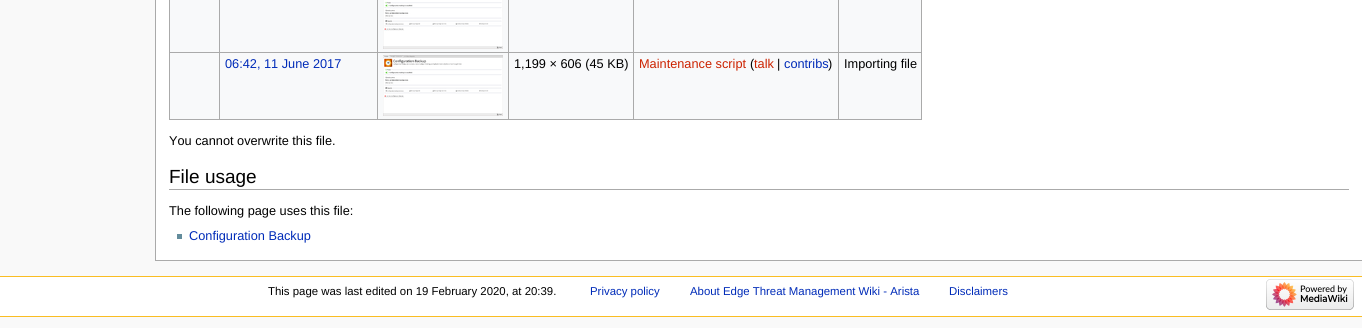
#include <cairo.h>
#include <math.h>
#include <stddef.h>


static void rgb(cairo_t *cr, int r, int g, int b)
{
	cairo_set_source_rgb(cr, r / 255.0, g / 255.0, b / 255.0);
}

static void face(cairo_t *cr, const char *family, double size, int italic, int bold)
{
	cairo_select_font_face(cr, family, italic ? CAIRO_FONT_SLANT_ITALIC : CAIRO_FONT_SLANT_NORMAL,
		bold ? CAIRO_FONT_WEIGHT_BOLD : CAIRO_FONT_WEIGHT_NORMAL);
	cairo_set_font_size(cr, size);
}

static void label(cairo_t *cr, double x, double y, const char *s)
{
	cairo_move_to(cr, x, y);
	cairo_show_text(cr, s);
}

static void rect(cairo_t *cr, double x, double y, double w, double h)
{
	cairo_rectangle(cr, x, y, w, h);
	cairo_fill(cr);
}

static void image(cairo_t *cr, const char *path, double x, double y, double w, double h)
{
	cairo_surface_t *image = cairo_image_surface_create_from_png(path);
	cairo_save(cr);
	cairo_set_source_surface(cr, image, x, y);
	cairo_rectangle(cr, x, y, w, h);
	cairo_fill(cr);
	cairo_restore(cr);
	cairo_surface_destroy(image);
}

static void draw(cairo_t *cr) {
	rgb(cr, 249, 249, 249);
	cairo_paint(cr);
	rgb(cr, 255, 255, 255);
	rect(cr, 156, 0, 1206, 260);
	rgb(cr, 170, 170, 170);
	rect(cr, 155, 260, 1207, 1);
	rect(cr, 155, 0, 1, 261);
	rgb(cr, 248, 249, 250);
	rect(cr, 170, 0, 751, 119);
	rgb(cr, 170, 170, 170);
	rect(cr, 921, 0, 1, 120);
	rect(cr, 169, 119, 753, 1);
	rect(cr, 169, 0, 1, 120);
	rect(cr, 838, 52, 84, 1);
	rect(cr, 838, 52, 1, 68);
	rect(cr, 633, 52, 206, 1);
	rect(cr, 633, 52, 1, 68);
	rect(cr, 508, 52, 126, 1);
	rect(cr, 508, 52, 1, 68);
	rect(cr, 377, 52, 132, 1);
	rect(cr, 377, 52, 1, 68);
	rect(cr, 219, 52, 159, 1);
	rect(cr, 219, 52, 1, 68);
	rect(cr, 169, 52, 51, 1);
	rect(cr, 219, 0, 1, 53);
	rect(cr, 377, 0, 1, 53);
	image(cr, "image0.png", 383, 0, 120, 49);
	rect(cr, 508, 0, 1, 53);
	rect(cr, 633, 0, 1, 53);
	rect(cr, 838, 0, 1, 53);
	face(cr, "Liberation Sans", 12.75, 0, 0);
	rgb(cr, 0, 43, 184);
	label(cr, 225, 68, "06:42, 11 June 2017");
	image(cr, "image1.png", 383, 55, 120, 61);
	rgb(cr, 0, 0, 0);
	label(cr, 514, 68, "1,199 × 606 (45 KB)");
	rgb(cr, 204, 34, 0);
	label(cr, 639, 68, "Maintenance script");
	rgb(cr, 0, 0, 0);
	label(cr, 750, 68, "(");
	rgb(cr, 204, 34, 0);
	label(cr, 754, 68, "talk");
	rgb(cr, 0, 0, 0);
	label(cr, 777, 68, "|");
	rgb(cr, 0, 43, 184);
	label(cr, 784, 68, "contribs");
	rgb(cr, 0, 0, 0);
	label(cr, 828, 68, ")");
	label(cr, 844, 68, "Importing file");
	label(cr, 169, 145, "You cannot overwrite this file.");
	rgb(cr, 170, 170, 170);
	rect(cr, 169, 189, 1180, 1);
	face(cr, "Liberation Sans", 19, 0, 0);
	rgb(cr, 0, 0, 0);
	label(cr, 169, 183, "File usage");
	face(cr, "Liberation Sans", 12.75, 0, 0);
	label(cr, 169, 215, "The following page uses this file:");
	rgb(cr, 99, 140, 156);
	rect(cr, 177, 234, 5, 5);
	rgb(cr, 0, 43, 184);
	label(cr, 189, 240, "Configuration Backup");
	rgb(cr, 255, 255, 255);
	rect(cr, 0, 277, 1362, 39);
	rgb(cr, 250, 189, 35);
	rect(cr, 0, 276, 1362, 1);
	rect(cr, 0, 316, 1362, 1);
	face(cr, "Liberation Sans", 11.4, 0, 0);
	rgb(cr, 0, 0, 0);
	label(cr, 268, 295, "This page was last edited on 19 February 2020, at 20:39.");
	rgb(cr, 0, 43, 184);
	label(cr, 590, 295, "Privacy policy");
	label(cr, 690, 295, "About Edge Threat Management Wiki - Arista");
	label(cr, 949, 295, "Disclaimers");
	image(cr, "image2.png", 1266, 279, 88, 31);
}

int main(void) {
	cairo_surface_t *surface = cairo_image_surface_create(CAIRO_FORMAT_RGB24, 1362, 328);
	cairo_t *cr = cairo_create(surface);
	cairo_font_options_t *options = cairo_font_options_create();
	cairo_font_options_set_hint_metrics(options, CAIRO_HINT_METRICS_OFF);
	cairo_font_options_set_hint_style(options, CAIRO_HINT_STYLE_NONE);
	cairo_set_font_options(cr, options);
	cairo_set_miter_limit(cr, 4);
	draw(cr);
	cairo_surface_write_to_png(surface, "render.png");
	cairo_font_options_destroy(options);
	cairo_destroy(cr);
	cairo_surface_destroy(surface);
	return 0;
}
